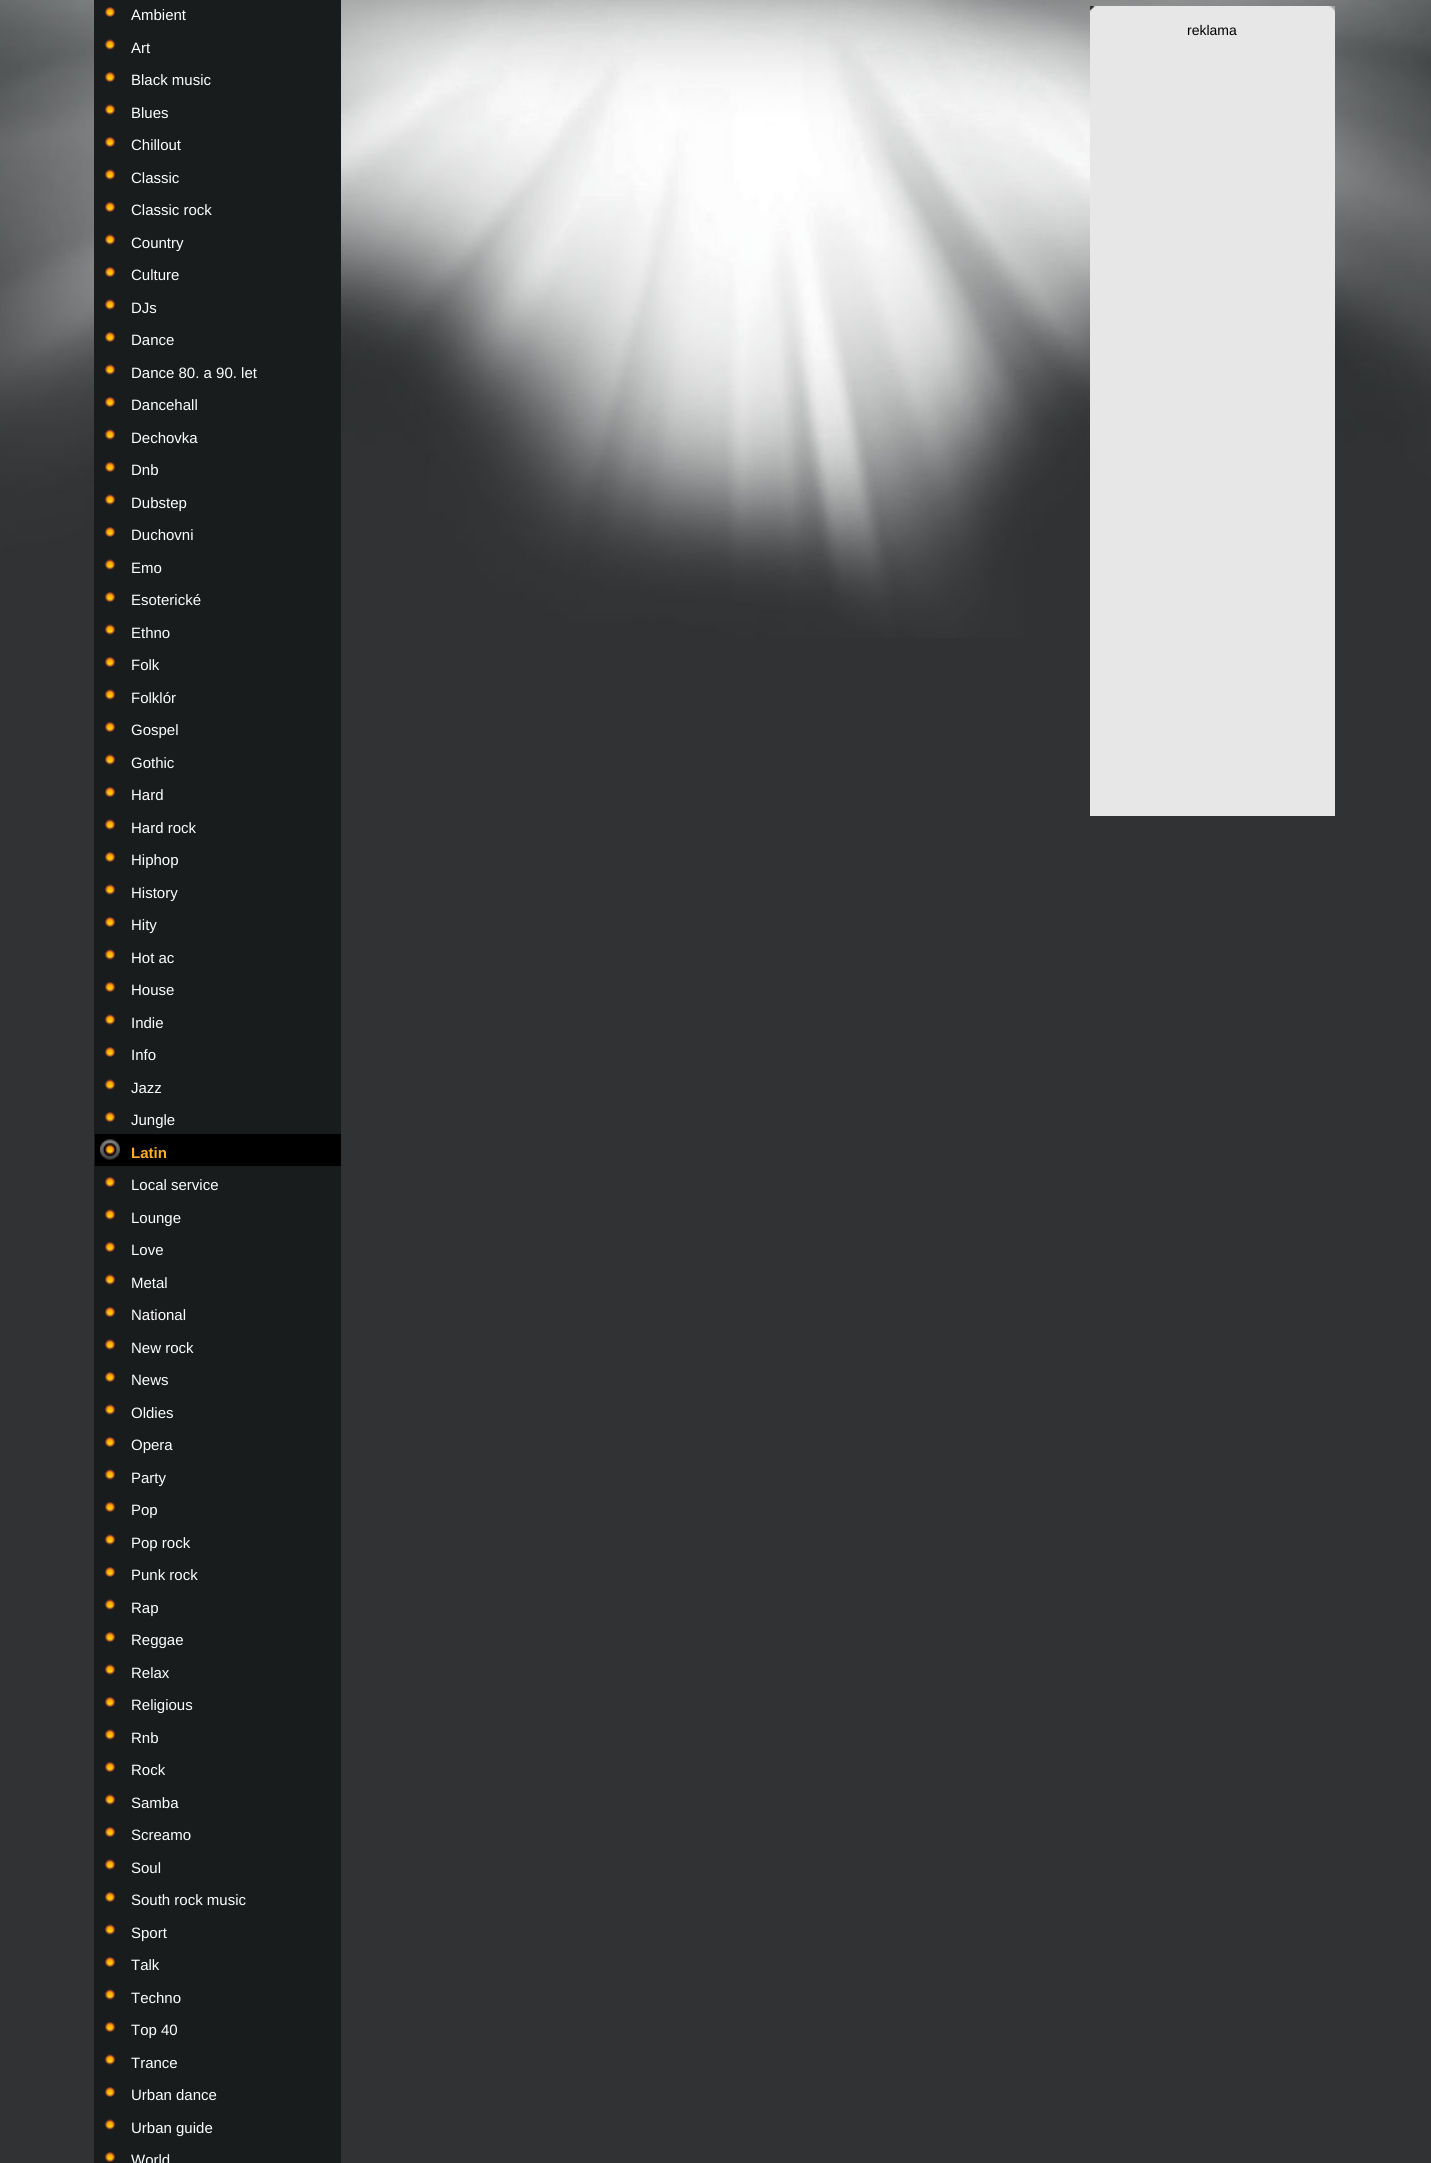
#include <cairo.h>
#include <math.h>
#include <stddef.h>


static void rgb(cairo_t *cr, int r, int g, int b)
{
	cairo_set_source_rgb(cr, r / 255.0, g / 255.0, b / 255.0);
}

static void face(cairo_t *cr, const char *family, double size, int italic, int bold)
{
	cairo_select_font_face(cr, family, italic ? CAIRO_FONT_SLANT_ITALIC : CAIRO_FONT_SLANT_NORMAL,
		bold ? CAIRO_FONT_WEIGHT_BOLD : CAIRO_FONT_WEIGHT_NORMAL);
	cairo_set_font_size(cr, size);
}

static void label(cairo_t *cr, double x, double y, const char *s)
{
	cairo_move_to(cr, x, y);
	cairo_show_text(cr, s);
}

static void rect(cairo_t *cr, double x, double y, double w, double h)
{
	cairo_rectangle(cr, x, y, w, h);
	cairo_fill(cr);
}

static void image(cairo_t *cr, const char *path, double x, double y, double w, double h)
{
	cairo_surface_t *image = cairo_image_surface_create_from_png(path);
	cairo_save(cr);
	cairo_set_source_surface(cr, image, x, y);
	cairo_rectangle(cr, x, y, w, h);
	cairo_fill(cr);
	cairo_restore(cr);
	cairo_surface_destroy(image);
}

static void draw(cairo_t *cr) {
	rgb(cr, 48, 50, 51);
	cairo_paint(cr);
	image(cr, "image0.png", 0, 0, 1431, 638);
	rgb(cr, 24, 28, 29);
	rect(cr, 94, 0, 247, 2163);
	image(cr, "image1.png", 105, 7, 10, 10);
	face(cr, "Liberation Sans", 15, 0, 0);
	rgb(cr, 255, 255, 255);
	label(cr, 131, 20, "Ambient");
	image(cr, "image2.png", 105, 39, 10, 11);
	label(cr, 131, 53, "Art");
	image(cr, "image1.png", 105, 72, 10, 10);
	label(cr, 131, 85, "Black music");
	image(cr, "image2.png", 105, 104, 10, 11);
	label(cr, 131, 118, "Blues");
	image(cr, "image1.png", 105, 137, 10, 10);
	label(cr, 131, 150, "Chillout");
	image(cr, "image2.png", 105, 169, 10, 11);
	label(cr, 131, 183, "Classic");
	image(cr, "image1.png", 105, 202, 10, 10);
	label(cr, 131, 215, "Classic rock");
	image(cr, "image2.png", 105, 234, 10, 11);
	label(cr, 131, 248, "Country");
	image(cr, "image1.png", 105, 267, 10, 10);
	label(cr, 131, 280, "Culture");
	image(cr, "image2.png", 105, 299, 10, 11);
	label(cr, 131, 313, "DJs");
	image(cr, "image1.png", 105, 332, 10, 10);
	label(cr, 131, 345, "Dance");
	image(cr, "image2.png", 105, 364, 10, 11);
	label(cr, 131, 378, "Dance 80. a 90. let");
	image(cr, "image3.png", 105, 397, 10, 10);
	label(cr, 131, 410, "Dancehall");
	image(cr, "image2.png", 105, 429, 10, 11);
	label(cr, 131, 443, "Dechovka");
	image(cr, "image1.png", 105, 462, 10, 10);
	label(cr, 131, 475, "Dnb");
	image(cr, "image2.png", 105, 494, 10, 11);
	label(cr, 131, 508, "Dubstep");
	image(cr, "image1.png", 105, 527, 10, 10);
	label(cr, 131, 540, "Duchovni");
	image(cr, "image2.png", 105, 559, 10, 11);
	label(cr, 131, 573, "Emo");
	image(cr, "image1.png", 105, 592, 10, 10);
	label(cr, 131, 605, "Esoterické");
	image(cr, "image2.png", 105, 624, 10, 11);
	label(cr, 131, 638, "Ethno");
	image(cr, "image1.png", 105, 657, 10, 10);
	label(cr, 131, 670, "Folk");
	image(cr, "image2.png", 105, 689, 10, 11);
	label(cr, 131, 703, "Folklór");
	image(cr, "image1.png", 105, 722, 10, 10);
	label(cr, 131, 735, "Gospel");
	image(cr, "image2.png", 105, 754, 10, 11);
	label(cr, 131, 768, "Gothic");
	image(cr, "image1.png", 105, 787, 10, 10);
	label(cr, 131, 800, "Hard");
	image(cr, "image2.png", 105, 819, 10, 11);
	label(cr, 131, 833, "Hard rock");
	image(cr, "image1.png", 105, 852, 10, 10);
	label(cr, 131, 865, "Hiphop");
	image(cr, "image2.png", 105, 884, 10, 11);
	label(cr, 131, 898, "History");
	image(cr, "image1.png", 105, 917, 10, 10);
	label(cr, 131, 930, "Hity");
	image(cr, "image2.png", 105, 949, 10, 11);
	label(cr, 131, 963, "Hot ac");
	image(cr, "image1.png", 105, 982, 10, 10);
	label(cr, 131, 995, "House");
	image(cr, "image2.png", 105, 1014, 10, 11);
	label(cr, 131, 1028, "Indie");
	image(cr, "image1.png", 105, 1047, 10, 10);
	label(cr, 131, 1060, "Info");
	image(cr, "image2.png", 105, 1079, 10, 11);
	label(cr, 131, 1093, "Jazz");
	image(cr, "image1.png", 105, 1112, 10, 10);
	label(cr, 131, 1125, "Jungle");
	rgb(cr, 0, 0, 0);
	rect(cr, 95, 1134, 246, 32);
	image(cr, "image4.png", 100, 1139, 20, 21);
	face(cr, "Liberation Sans", 15, 0, 1);
	rgb(cr, 255, 174, 36);
	label(cr, 131, 1158, "Latin");
	image(cr, "image1.png", 105, 1177, 10, 10);
	face(cr, "Liberation Sans", 15, 0, 0);
	rgb(cr, 255, 255, 255);
	label(cr, 131, 1190, "Local service");
	image(cr, "image2.png", 105, 1209, 10, 11);
	label(cr, 131, 1223, "Lounge");
	image(cr, "image1.png", 105, 1242, 10, 10);
	label(cr, 131, 1255, "Love");
	image(cr, "image2.png", 105, 1274, 10, 11);
	label(cr, 131, 1288, "Metal");
	image(cr, "image1.png", 105, 1307, 10, 10);
	label(cr, 131, 1320, "National");
	image(cr, "image2.png", 105, 1339, 10, 11);
	label(cr, 131, 1353, "New rock");
	image(cr, "image1.png", 105, 1372, 10, 10);
	label(cr, 131, 1385, "News");
	image(cr, "image2.png", 105, 1404, 10, 11);
	label(cr, 131, 1418, "Oldies");
	image(cr, "image1.png", 105, 1437, 10, 10);
	label(cr, 131, 1450, "Opera");
	image(cr, "image2.png", 105, 1469, 10, 11);
	label(cr, 131, 1483, "Party");
	image(cr, "image1.png", 105, 1502, 10, 10);
	label(cr, 131, 1515, "Pop");
	image(cr, "image2.png", 105, 1534, 10, 11);
	label(cr, 131, 1548, "Pop rock");
	image(cr, "image1.png", 105, 1567, 10, 10);
	label(cr, 131, 1580, "Punk rock");
	image(cr, "image2.png", 105, 1599, 10, 11);
	label(cr, 131, 1613, "Rap");
	image(cr, "image1.png", 105, 1632, 10, 10);
	label(cr, 131, 1645, "Reggae");
	image(cr, "image5.png", 105, 1664, 10, 11);
	label(cr, 131, 1678, "Relax");
	image(cr, "image1.png", 105, 1697, 10, 10);
	label(cr, 131, 1710, "Religious");
	image(cr, "image2.png", 105, 1729, 10, 11);
	label(cr, 131, 1743, "Rnb");
	image(cr, "image1.png", 105, 1762, 10, 10);
	label(cr, 131, 1775, "Rock");
	image(cr, "image2.png", 105, 1794, 10, 11);
	label(cr, 131, 1808, "Samba");
	image(cr, "image1.png", 105, 1827, 10, 10);
	label(cr, 131, 1840, "Screamo");
	image(cr, "image2.png", 105, 1859, 10, 11);
	label(cr, 131, 1873, "Soul");
	image(cr, "image1.png", 105, 1892, 10, 10);
	label(cr, 131, 1905, "South rock music");
	image(cr, "image2.png", 105, 1924, 10, 11);
	label(cr, 131, 1938, "Sport");
	image(cr, "image1.png", 105, 1957, 10, 10);
	label(cr, 131, 1970, "Talk");
	image(cr, "image2.png", 105, 1989, 10, 11);
	label(cr, 131, 2003, "Techno");
	image(cr, "image1.png", 105, 2022, 10, 10);
	label(cr, 131, 2035, "Top 40");
	image(cr, "image2.png", 105, 2054, 10, 11);
	label(cr, 131, 2068, "Trance");
	image(cr, "image1.png", 105, 2087, 10, 10);
	label(cr, 131, 2100, "Urban dance");
	image(cr, "image2.png", 105, 2119, 10, 11);
	label(cr, 131, 2133, "Urban guide");
	image(cr, "image1.png", 105, 2152, 10, 10);
	label(cr, 131, 2165, "World");
	rgb(cr, 231, 231, 231);
	rect(cr, 1090, 6, 245, 810);
	image(cr, "image6.png", 1089, 6, 246, 6);
	face(cr, "Liberation Sans", 14, 0, 0);
	rgb(cr, 0, 0, 0);
	label(cr, 1187, 35, "reklama");
}

int main(void) {
	cairo_surface_t *surface = cairo_image_surface_create(CAIRO_FORMAT_RGB24, 1431, 2163);
	cairo_t *cr = cairo_create(surface);
	cairo_font_options_t *options = cairo_font_options_create();
	cairo_font_options_set_hint_metrics(options, CAIRO_HINT_METRICS_OFF);
	cairo_font_options_set_hint_style(options, CAIRO_HINT_STYLE_NONE);
	cairo_set_font_options(cr, options);
	cairo_set_miter_limit(cr, 4);
	draw(cr);
	cairo_surface_write_to_png(surface, "render.png");
	cairo_font_options_destroy(options);
	cairo_destroy(cr);
	cairo_surface_destroy(surface);
	return 0;
}
